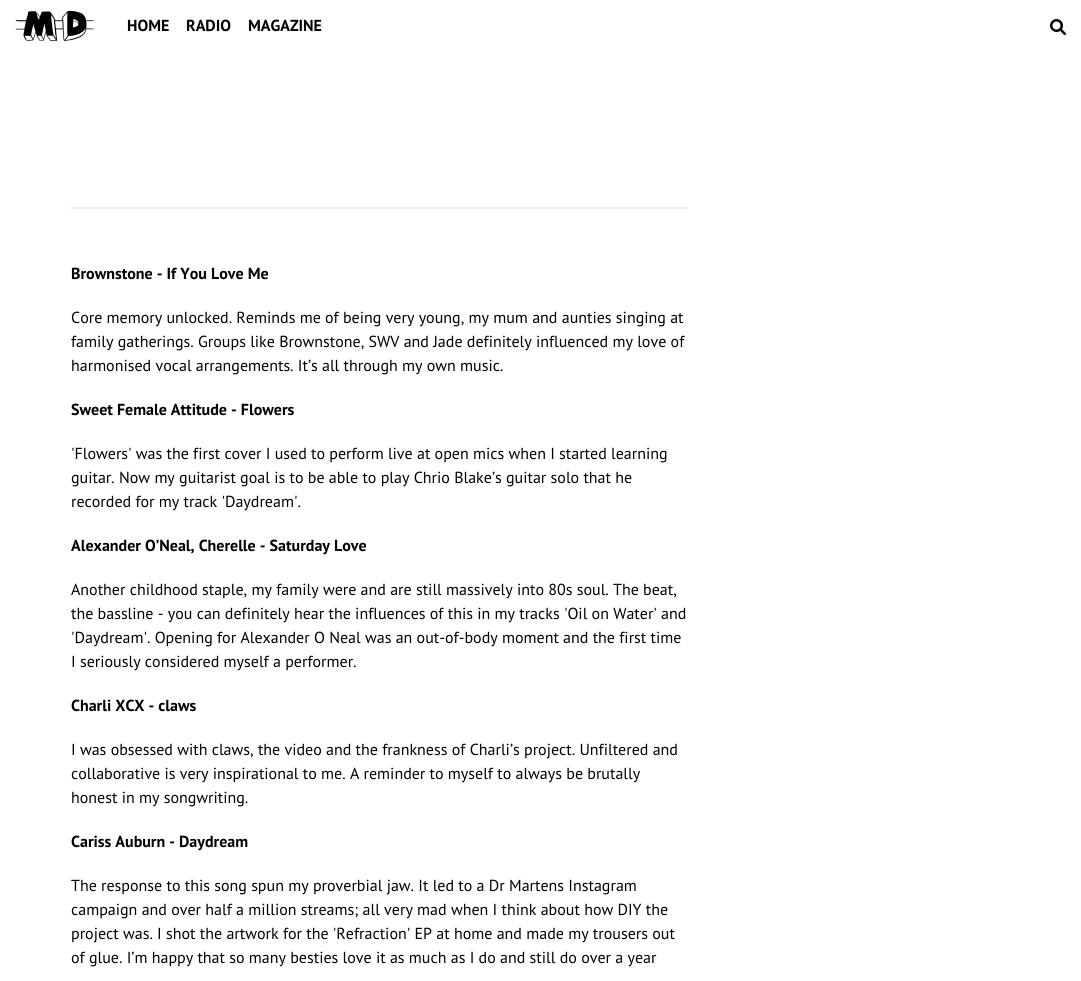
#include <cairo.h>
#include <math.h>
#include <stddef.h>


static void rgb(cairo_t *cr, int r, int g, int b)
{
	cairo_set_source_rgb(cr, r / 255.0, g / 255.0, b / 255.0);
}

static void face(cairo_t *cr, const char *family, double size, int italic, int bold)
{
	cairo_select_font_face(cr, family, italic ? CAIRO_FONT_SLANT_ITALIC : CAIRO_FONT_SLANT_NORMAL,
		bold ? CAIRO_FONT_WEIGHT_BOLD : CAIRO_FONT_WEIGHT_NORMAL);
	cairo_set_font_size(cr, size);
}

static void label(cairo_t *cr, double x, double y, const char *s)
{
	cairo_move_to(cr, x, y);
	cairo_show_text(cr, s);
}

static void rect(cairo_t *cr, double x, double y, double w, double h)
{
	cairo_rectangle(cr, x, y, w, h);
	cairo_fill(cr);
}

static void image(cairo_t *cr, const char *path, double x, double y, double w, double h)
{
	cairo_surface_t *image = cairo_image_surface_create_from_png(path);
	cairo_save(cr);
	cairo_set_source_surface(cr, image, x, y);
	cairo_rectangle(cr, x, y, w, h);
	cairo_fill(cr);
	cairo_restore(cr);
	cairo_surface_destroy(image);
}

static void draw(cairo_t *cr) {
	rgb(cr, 255, 255, 255);
	cairo_paint(cr);
	image(cr, "image0.png", 15, 11, 80, 30);
	face(cr, "PT Sans", 16, 0, 1);
	rgb(cr, 0, 0, 0);
	label(cr, 127, 31, "HOME");
	label(cr, 186, 31, "RADIO");
	label(cr, 248, 31, "MAGAZINE");
	image(cr, "image1.png", 1050, 19, 16, 16);
	rgb(cr, 238, 238, 238);
	rect(cr, 71, 207, 616, 2);
	rgb(cr, 0, 0, 0);
	label(cr, 71, 279, "Brownstone - If You Love Me");
	face(cr, "PT Sans", 16, 0, 0);
	label(cr, 71, 323, "Core memory unlocked. Reminds me of being very young, my mum and aunties singing at");
	label(cr, 71, 347, "family gatherings. Groups like Brownstone, SWV and Jade definitely influenced my love of");
	label(cr, 71, 371, "harmonised vocal arrangements. It’s all through my own music.");
	face(cr, "PT Sans", 16, 0, 1);
	label(cr, 71, 415, "Sweet Female Attitude - Flowers");
	face(cr, "PT Sans", 16, 0, 0);
	label(cr, 71, 459, "'Flowers' was the first cover I used to perform live at open mics when I started learning");
	label(cr, 71, 483, "guitar. Now my guitarist goal is to be able to play Chrio Blake’s guitar solo that he");
	label(cr, 71, 507, "recorded for my track 'Daydream'.");
	face(cr, "PT Sans", 16, 0, 1);
	label(cr, 71, 551, "Alexander O’Neal, Cherelle - Saturday Love");
	face(cr, "PT Sans", 16, 0, 0);
	label(cr, 71, 595, "Another childhood staple, my family were and are still massively into 80s soul. The beat,");
	label(cr, 71, 619, "the bassline - you can definitely hear the influences of this in my tracks 'Oil on Water' and");
	label(cr, 71, 643, "'Daydream'. Opening for Alexander O Neal was an out-of-body moment and the first time");
	label(cr, 71, 667, "I seriously considered myself a performer.");
	face(cr, "PT Sans", 16, 0, 1);
	label(cr, 71, 711, "Charli XCX - claws");
	face(cr, "PT Sans", 16, 0, 0);
	label(cr, 71, 755, "I was obsessed with claws, the video and the frankness of Charli’s project. Unfiltered and");
	label(cr, 71, 779, "collaborative is very inspirational to me. A reminder to myself to always be brutally");
	label(cr, 71, 803, "honest in my songwriting.");
	face(cr, "PT Sans", 16, 0, 1);
	label(cr, 71, 847, "Cariss Auburn - Daydream");
	face(cr, "PT Sans", 16, 0, 0);
	label(cr, 71, 891, "The response to this song spun my proverbial jaw. It led to a Dr Martens Instagram");
	label(cr, 71, 915, "campaign and over half a million streams; all very mad when I think about how DIY the");
	label(cr, 71, 939, "project was. I shot the artwork for the 'Refraction' EP at home and made my trousers out");
	label(cr, 71, 963, "of glue. I’m happy that so many besties love it as much as I do and still do over a year");
}

int main(void) {
	cairo_surface_t *surface = cairo_image_surface_create(CAIRO_FORMAT_RGB24, 1081, 981);
	cairo_t *cr = cairo_create(surface);
	cairo_font_options_t *options = cairo_font_options_create();
	cairo_font_options_set_hint_metrics(options, CAIRO_HINT_METRICS_OFF);
	cairo_font_options_set_hint_style(options, CAIRO_HINT_STYLE_NONE);
	cairo_set_font_options(cr, options);
	cairo_set_miter_limit(cr, 4);
	draw(cr);
	cairo_surface_write_to_png(surface, "render.png");
	cairo_font_options_destroy(options);
	cairo_destroy(cr);
	cairo_surface_destroy(surface);
	return 0;
}
